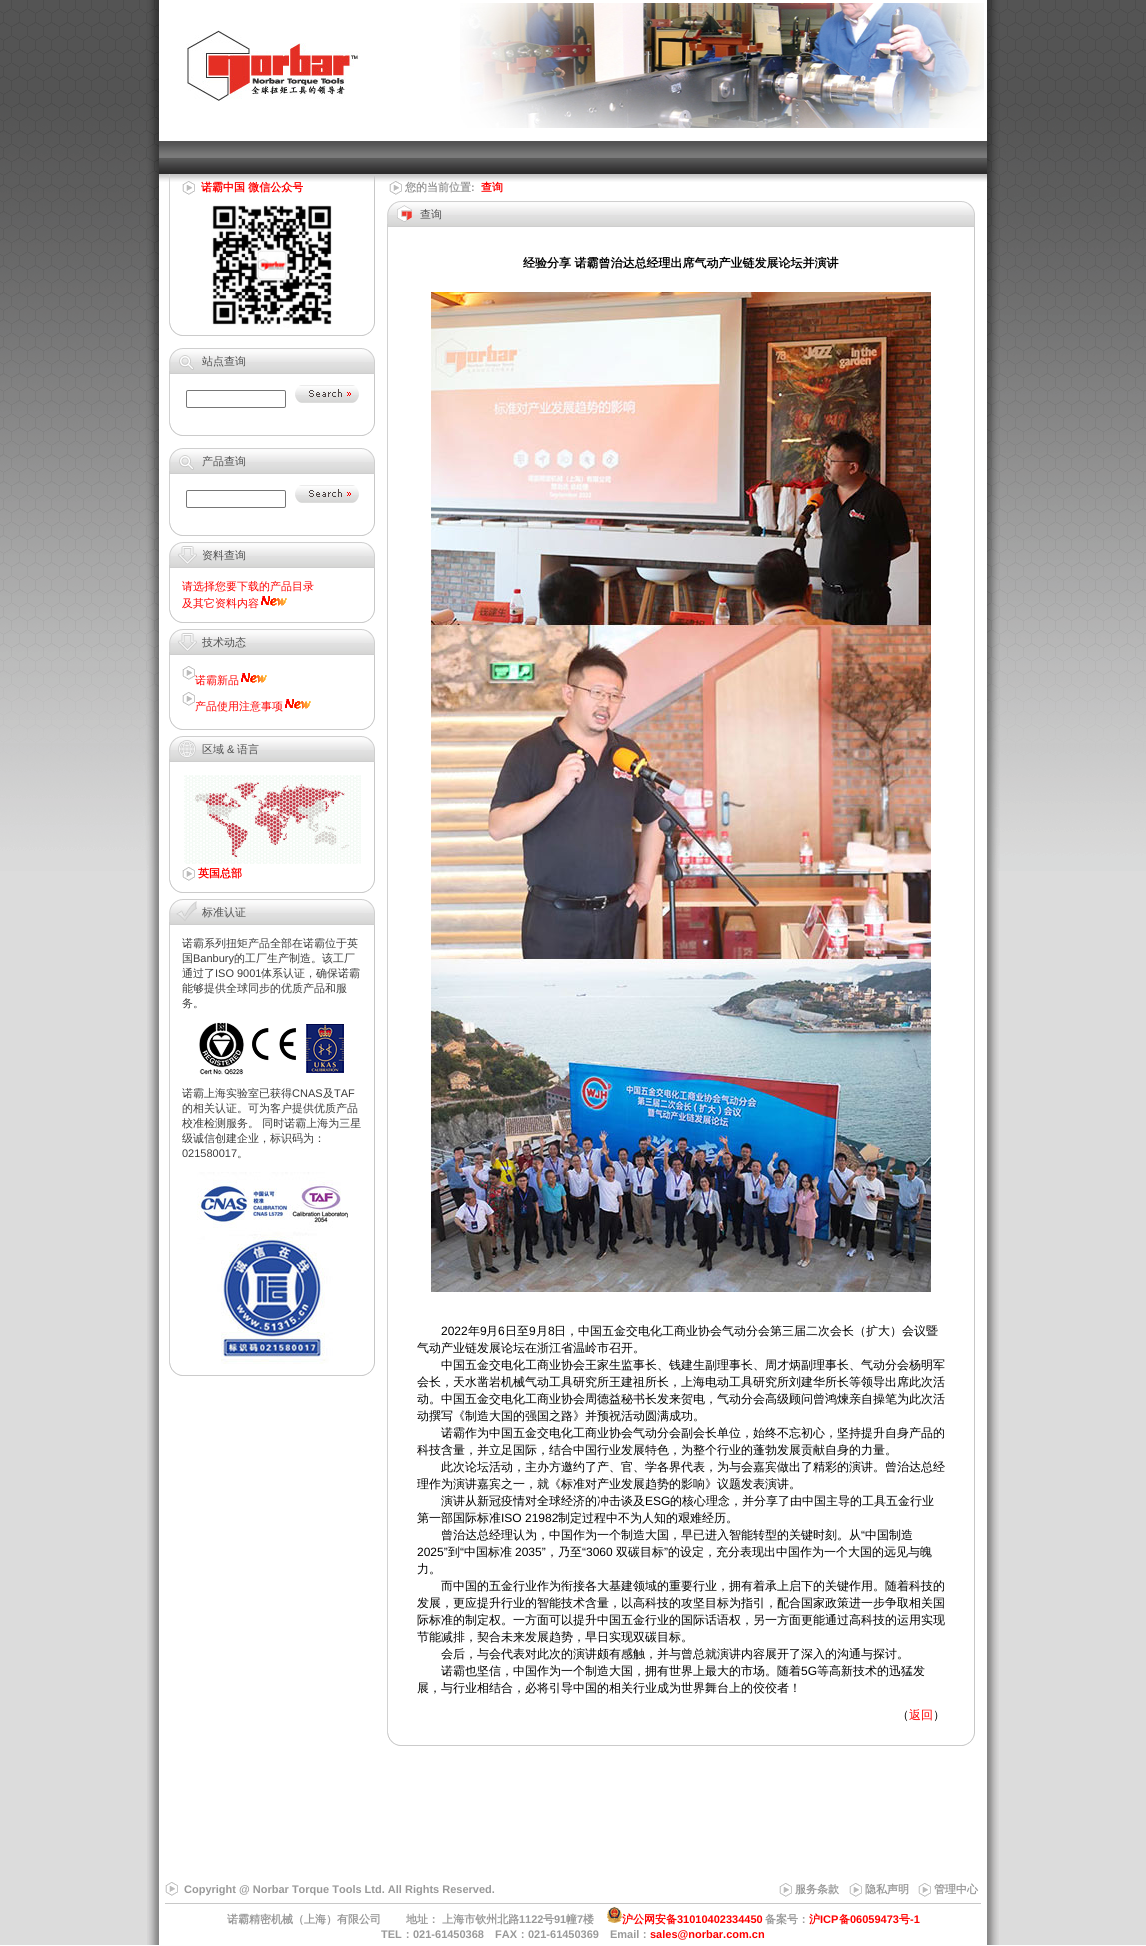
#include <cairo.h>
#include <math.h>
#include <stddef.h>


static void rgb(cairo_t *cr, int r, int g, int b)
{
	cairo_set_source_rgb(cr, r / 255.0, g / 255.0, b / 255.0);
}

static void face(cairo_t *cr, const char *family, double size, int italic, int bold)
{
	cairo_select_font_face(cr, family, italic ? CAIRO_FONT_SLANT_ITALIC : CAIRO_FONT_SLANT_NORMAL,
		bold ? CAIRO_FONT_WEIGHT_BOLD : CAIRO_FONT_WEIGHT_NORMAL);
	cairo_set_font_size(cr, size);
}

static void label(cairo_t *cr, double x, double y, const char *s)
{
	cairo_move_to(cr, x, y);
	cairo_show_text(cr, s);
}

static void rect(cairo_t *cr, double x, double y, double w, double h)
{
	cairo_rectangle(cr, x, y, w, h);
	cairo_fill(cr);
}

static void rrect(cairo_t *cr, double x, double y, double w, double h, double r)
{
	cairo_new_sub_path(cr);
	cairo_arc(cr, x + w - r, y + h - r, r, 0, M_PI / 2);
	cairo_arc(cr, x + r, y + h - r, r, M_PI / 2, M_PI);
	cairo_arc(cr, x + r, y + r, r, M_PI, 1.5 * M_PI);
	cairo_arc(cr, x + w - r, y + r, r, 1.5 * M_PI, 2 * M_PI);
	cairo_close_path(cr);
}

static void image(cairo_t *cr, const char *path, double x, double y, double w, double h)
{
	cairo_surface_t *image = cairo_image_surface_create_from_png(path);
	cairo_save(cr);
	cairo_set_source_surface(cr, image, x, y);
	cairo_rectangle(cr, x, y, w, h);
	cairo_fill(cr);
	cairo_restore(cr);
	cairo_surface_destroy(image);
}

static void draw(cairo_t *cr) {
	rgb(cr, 255, 255, 255);
	cairo_paint(cr);
	rgb(cr, 220, 220, 220);
	rect(cr, 0, 871, 147, 1074);
	image(cr, "image0.png", 147, 871, 12, 1074);
	image(cr, "image1.png", 0, 0, 143, 871);
	image(cr, "image2.png", 143, 0, 16, 871);
	image(cr, "image3.png", 186, 30, 174, 71);
	image(cr, "image4.png", 460, 3, 524, 125);
	image(cr, "image5.png", 159, 141, 828, 33);
	image(cr, "image6.png", 159, 174, 216, 8);
	rgb(cr, 210, 210, 210);
	rect(cr, 169, 174, 1, 149);
	image(cr, "image7.png", 169, 323, 13, 13);
	rgb(cr, 203, 203, 203);
	rect(cr, 182, 335, 180, 1);
	image(cr, "image8.png", 182, 181, 13, 14);
	face(cr, "WenQuanYi Zen Hei", 11, 0, 1);
	rgb(cr, 255, 0, 0);
	label(cr, 201, 191, "诺霸中国 微信公众号");
	image(cr, "image9.png", 211, 205, 121, 123);
	rgb(cr, 199, 199, 199);
	rect(cr, 374, 176, 1, 147);
	image(cr, "image10.png", 362, 323, 13, 13);
	image(cr, "image11.png", 169, 348, 193, 26);
	image(cr, "image12.png", 169, 348, 25, 25);
	face(cr, "WenQuanYi Zen Hei Medium", 11, 0, 0);
	rgb(cr, 80, 80, 80);
	label(cr, 202, 365, "站点查询");
	image(cr, "image13.png", 362, 348, 13, 26);
	rgb(cr, 210, 210, 210);
	rect(cr, 169, 374, 1, 49);
	image(cr, "image7.png", 169, 423, 13, 13);
	rgb(cr, 203, 203, 203);
	rect(cr, 182, 435, 180, 1);
	rrect(cr, 186.5, 390.5, 99, 17, 1.5);
	rgb(cr, 118, 118, 118);
	cairo_set_line_width(cr, 1);
	cairo_stroke(cr);
	image(cr, "image14.png", 295, 385, 64, 18);
	rgb(cr, 199, 199, 199);
	rect(cr, 374, 374, 1, 49);
	image(cr, "image10.png", 362, 423, 13, 13);
	image(cr, "image11.png", 169, 448, 193, 26);
	image(cr, "image12.png", 169, 448, 25, 25);
	rgb(cr, 80, 80, 80);
	label(cr, 202, 465, "产品查询");
	image(cr, "image13.png", 362, 448, 13, 26);
	rgb(cr, 210, 210, 210);
	rect(cr, 169, 474, 1, 49);
	image(cr, "image7.png", 169, 523, 13, 13);
	rgb(cr, 203, 203, 203);
	rect(cr, 182, 535, 180, 1);
	rrect(cr, 186.5, 490.5, 99, 17, 1.5);
	rgb(cr, 118, 118, 118);
	cairo_stroke(cr);
	image(cr, "image14.png", 295, 485, 64, 18);
	rgb(cr, 199, 199, 199);
	rect(cr, 374, 474, 1, 49);
	image(cr, "image10.png", 362, 523, 13, 13);
	image(cr, "image11.png", 169, 542, 193, 26);
	image(cr, "image15.png", 169, 542, 28, 25);
	rgb(cr, 80, 80, 80);
	label(cr, 202, 559, "资料查询");
	image(cr, "image13.png", 362, 542, 13, 26);
	rgb(cr, 210, 210, 210);
	rect(cr, 169, 568, 1, 42);
	image(cr, "image7.png", 169, 610, 13, 13);
	rgb(cr, 203, 203, 203);
	rect(cr, 182, 622, 180, 1);
	rgb(cr, 255, 0, 0);
	label(cr, 182, 590, "请选择您要下载的产品目录");
	label(cr, 182, 607, "及其它资料内容");
	image(cr, "image16.png", 261, 596, 26, 10);
	rgb(cr, 199, 199, 199);
	rect(cr, 374, 568, 1, 42);
	image(cr, "image10.png", 362, 610, 13, 13);
	image(cr, "image11.png", 169, 629, 193, 26);
	image(cr, "image15.png", 169, 629, 28, 25);
	rgb(cr, 80, 80, 80);
	label(cr, 202, 646, "技术动态");
	image(cr, "image13.png", 362, 629, 13, 26);
	rgb(cr, 210, 210, 210);
	rect(cr, 169, 655, 1, 62);
	image(cr, "image7.png", 169, 717, 13, 13);
	rgb(cr, 203, 203, 203);
	rect(cr, 182, 729, 180, 1);
	image(cr, "image17.png", 182, 666, 13, 14);
	rgb(cr, 255, 0, 0);
	label(cr, 195, 684, "诺霸新品");
	image(cr, "image16.png", 241, 673, 26, 10);
	image(cr, "image17.png", 182, 692, 13, 14);
	label(cr, 195, 710, "产品使用注意事项");
	image(cr, "image16.png", 285, 699, 26, 10);
	rgb(cr, 199, 199, 199);
	rect(cr, 374, 655, 1, 62);
	image(cr, "image10.png", 362, 717, 13, 13);
	image(cr, "image11.png", 169, 736, 193, 26);
	image(cr, "image18.png", 169, 736, 27, 25);
	rgb(cr, 80, 80, 80);
	label(cr, 202, 753, "区域");
	face(cr, "Liberation Sans", 11, 0, 0);
	label(cr, 227, 753, "&");
	face(cr, "WenQuanYi Zen Hei Medium", 11, 0, 0);
	label(cr, 237, 753, "语言");
	image(cr, "image13.png", 362, 736, 13, 26);
	rgb(cr, 210, 210, 210);
	rect(cr, 169, 762, 1, 118);
	image(cr, "image7.png", 169, 880, 13, 13);
	rgb(cr, 203, 203, 203);
	rect(cr, 182, 892, 180, 1);
	image(cr, "image19.png", 184, 775, 177, 89);
	image(cr, "image17.png", 182, 867, 13, 14);
	face(cr, "WenQuanYi Zen Hei", 11, 0, 1);
	rgb(cr, 255, 0, 0);
	label(cr, 198, 877, "英国总部");
	rgb(cr, 199, 199, 199);
	rect(cr, 374, 762, 1, 118);
	image(cr, "image10.png", 362, 880, 13, 13);
	image(cr, "image11.png", 169, 899, 193, 26);
	image(cr, "image20.png", 169, 899, 28, 25);
	face(cr, "WenQuanYi Zen Hei Medium", 11, 0, 0);
	rgb(cr, 80, 80, 80);
	label(cr, 202, 916, "标准认证");
	image(cr, "image13.png", 362, 899, 13, 26);
	rgb(cr, 210, 210, 210);
	rect(cr, 169, 925, 1, 438);
	image(cr, "image7.png", 169, 1363, 13, 13);
	rgb(cr, 203, 203, 203);
	rect(cr, 182, 1375, 180, 1);
	rgb(cr, 60, 60, 60);
	label(cr, 182, 947, "诺霸系列扭矩产品全部在诺霸位于英");
	label(cr, 182, 962, "国");
	face(cr, "Liberation Sans", 11, 0, 0);
	label(cr, 193, 962, "Banbury");
	face(cr, "WenQuanYi Zen Hei Medium", 11, 0, 0);
	label(cr, 234, 962, "的工厂生产制造。该工厂");
	label(cr, 182, 977, "通过了");
	face(cr, "Liberation Sans", 11, 0, 0);
	label(cr, 215, 977, "ISO 9001");
	face(cr, "WenQuanYi Zen Hei Medium", 11, 0, 0);
	label(cr, 261, 977, "体系认证，确保诺霸");
	label(cr, 182, 992, "能够提供全球同步的优质产品和服");
	label(cr, 182, 1007, "务。");
	image(cr, "image21.png", 199, 1022, 145, 53);
	label(cr, 182, 1097, "诺霸上海实验室已获得");
	face(cr, "Liberation Sans", 11, 0, 0);
	label(cr, 292, 1097, "CNAS");
	face(cr, "WenQuanYi Zen Hei Medium", 11, 0, 0);
	label(cr, 323, 1097, "及");
	face(cr, "Liberation Sans", 11, 0, 0);
	label(cr, 334, 1097, "TAF");
	face(cr, "WenQuanYi Zen Hei Medium", 11, 0, 0);
	label(cr, 182, 1112, "的相关认证。可为客户提供优质产品");
	label(cr, 182, 1127, "校准检测服务。 同时诺霸上海为三星");
	label(cr, 182, 1142, "级诚信创建企业，标识码为：");
	face(cr, "Liberation Sans", 11, 0, 0);
	label(cr, 182, 1157, "021580017");
	face(cr, "WenQuanYi Zen Hei Medium", 11, 0, 0);
	label(cr, 237, 1157, "。");
	image(cr, "image22.png", 197, 1172, 151, 192);
	rgb(cr, 199, 199, 199);
	rect(cr, 374, 925, 1, 438);
	image(cr, "image10.png", 362, 1363, 13, 13);
	image(cr, "image23.png", 375, 174, 612, 8);
	image(cr, "image8.png", 389, 181, 13, 14);
	face(cr, "WenQuanYi Zen Hei", 11, 0, 1);
	rgb(cr, 153, 153, 153);
	label(cr, 405, 191, "您的当前位置");
	face(cr, "Liberation Sans", 11, 0, 1);
	label(cr, 471, 191, ":");
	face(cr, "WenQuanYi Zen Hei", 11, 0, 1);
	rgb(cr, 255, 0, 0);
	label(cr, 481, 191, "查询");
	image(cr, "image24.png", 387, 201, 575, 26);
	image(cr, "image25.png", 387, 201, 25, 25);
	face(cr, "WenQuanYi Zen Hei Medium", 11, 0, 0);
	rgb(cr, 80, 80, 80);
	label(cr, 420, 218, "查询");
	image(cr, "image13.png", 962, 201, 13, 26);
	rgb(cr, 210, 210, 210);
	rect(cr, 387, 227, 1, 1506);
	image(cr, "image7.png", 387, 1733, 13, 13);
	rgb(cr, 203, 203, 203);
	rect(cr, 400, 1745, 562, 1);
	face(cr, "WenQuanYi Zen Hei", 12, 0, 1);
	rgb(cr, 0, 0, 0);
	label(cr, 523, 267, "经验分享 诺霸曾治达总经理出席气动产业链发展论坛并演讲");
	image(cr, "image26.png", 431, 292, 500, 1000);
	face(cr, "Liberation Sans", 12, 0, 0);
	label(cr, 441, 1335, "2022");
	face(cr, "WenQuanYi Zen Hei Medium", 12, 0, 0);
	label(cr, 468, 1335, "年");
	face(cr, "Liberation Sans", 12, 0, 0);
	label(cr, 480, 1335, "9");
	face(cr, "WenQuanYi Zen Hei Medium", 12, 0, 0);
	label(cr, 486, 1335, "月");
	face(cr, "Liberation Sans", 12, 0, 0);
	label(cr, 498, 1335, "6");
	face(cr, "WenQuanYi Zen Hei Medium", 12, 0, 0);
	label(cr, 505, 1335, "日至");
	face(cr, "Liberation Sans", 12, 0, 0);
	label(cr, 529, 1335, "9");
	face(cr, "WenQuanYi Zen Hei Medium", 12, 0, 0);
	label(cr, 536, 1335, "月");
	face(cr, "Liberation Sans", 12, 0, 0);
	label(cr, 548, 1335, "8");
	face(cr, "WenQuanYi Zen Hei Medium", 12, 0, 0);
	label(cr, 554, 1335, "日，中国五金交电化工商业协会气动分会第三届二次会长（扩大）会议暨");
	label(cr, 417, 1352, "气动产业链发展论坛在浙江省温岭市召开。");
	label(cr, 441, 1369, "中国五金交电化工商业协会王家生监事长、钱建生副理事长、周才炳副理事长、气动分会杨明军");
	label(cr, 417, 1386, "会长，天水凿岩机械气动工具研究所王建祖所长，上海电动工具研究所刘建华所长等领导出席此次活");
	label(cr, 417, 1403, "动。中国五金交电化工商业协会周德益秘书长发来贺电，气动分会高级顾问曾鸿煉亲自操笔为此次活");
	label(cr, 417, 1420, "动撰写《制造大国的强国之路》并预祝活动圆满成功。");
	label(cr, 441, 1437, "诺霸作为中国五金交电化工商业协会气动分会副会长单位，始终不忘初心，坚持提升自身产品的");
	label(cr, 417, 1454, "科技含量，并立足国际，结合中国行业发展特色，为整个行业的蓬勃发展贡献自身的力量。");
	label(cr, 441, 1471, "此次论坛活动，主办方邀约了产、官、学各界代表，为与会嘉宾做出了精彩的演讲。曾治达总经");
	label(cr, 417, 1488, "理作为演讲嘉宾之一，就《标准对产业发展趋势的影响》议题发表演讲。");
	label(cr, 441, 1505, "演讲从新冠疫情对全球经济的冲击谈及");
	face(cr, "Liberation Sans", 12, 0, 0);
	label(cr, 645, 1505, "ESG");
	face(cr, "WenQuanYi Zen Hei Medium", 12, 0, 0);
	label(cr, 670, 1505, "的核心理念，并分享了由中国主导的工具五金行业");
	label(cr, 417, 1522, "第一部国际标准");
	face(cr, "Liberation Sans", 12, 0, 0);
	label(cr, 501, 1522, "ISO 21982");
	face(cr, "WenQuanYi Zen Hei Medium", 12, 0, 0);
	label(cr, 558, 1522, "制定过程中不为人知的艰难经历。");
	label(cr, 441, 1539, "曾治达总经理认为，中国作为一个制造大国，早已进入智能转型的关键时刻。从");
	face(cr, "Liberation Sans", 12, 0, 0);
	label(cr, 861, 1539, "“");
	face(cr, "WenQuanYi Zen Hei Medium", 12, 0, 0);
	label(cr, 865, 1539, "中国制造");
	face(cr, "Liberation Sans", 12, 0, 0);
	label(cr, 417, 1556, "2025”");
	face(cr, "WenQuanYi Zen Hei Medium", 12, 0, 0);
	label(cr, 448, 1556, "到");
	face(cr, "Liberation Sans", 12, 0, 0);
	label(cr, 460, 1556, "“");
	face(cr, "WenQuanYi Zen Hei Medium", 12, 0, 0);
	label(cr, 464, 1556, "中国标准");
	face(cr, "Liberation Sans", 12, 0, 0);
	label(cr, 515, 1556, "2035”");
	face(cr, "WenQuanYi Zen Hei Medium", 12, 0, 0);
	label(cr, 546, 1556, "，乃至");
	face(cr, "Liberation Sans", 12, 0, 0);
	label(cr, 582, 1556, "“3060");
	face(cr, "WenQuanYi Zen Hei Medium", 12, 0, 0);
	label(cr, 616, 1556, "双碳目标");
	face(cr, "Liberation Sans", 12, 0, 0);
	label(cr, 664, 1556, "”");
	face(cr, "WenQuanYi Zen Hei Medium", 12, 0, 0);
	label(cr, 668, 1556, "的设定，充分表现出中国作为一个大国的远见与魄");
	label(cr, 417, 1573, "力。");
	label(cr, 441, 1590, "而中国的五金行业作为衔接各大基建领域的重要行业，拥有着承上启下的关键作用。随着科技的");
	label(cr, 417, 1607, "发展，更应提升行业的智能技术含量，以高科技的攻坚目标为指引，配合国家政策进一步争取相关国");
	label(cr, 417, 1624, "际标准的制定权。一方面可以提升中国五金行业的国际话语权，另一方面更能通过高科技的运用实现");
	label(cr, 417, 1641, "节能减排，契合未来发展趋势，早日实现双碳目标。");
	label(cr, 441, 1658, "会后，与会代表对此次的演讲颇有感触，并与曾总就演讲内容展开了深入的沟通与探讨。");
	label(cr, 441, 1675, "诺霸也坚信，中国作为一个制造大国，拥有世界上最大的市场。随着");
	face(cr, "Liberation Sans", 12, 0, 0);
	label(cr, 801, 1675, "5G");
	face(cr, "WenQuanYi Zen Hei Medium", 12, 0, 0);
	label(cr, 817, 1675, "等高新技术的迅猛发");
	label(cr, 417, 1692, "展，与行业相结合，必将引导中国的相关行业成为世界舞台上的佼佼者！");
	label(cr, 897, 1719, "（");
	rgb(cr, 255, 0, 0);
	label(cr, 909, 1719, "返回");
	rgb(cr, 0, 0, 0);
	label(cr, 933, 1719, "）");
	rgb(cr, 199, 199, 199);
	rect(cr, 974, 227, 1, 1506);
	image(cr, "image10.png", 962, 1733, 13, 13);
	image(cr, "image17.png", 165, 1882, 13, 14);
	face(cr, "Liberation Sans", 11, 0, 1);
	rgb(cr, 153, 153, 153);
	label(cr, 184, 1893, "Copyright @ Norbar Torque Tools Ltd. All Rights Reserved.");
	image(cr, "image17.png", 779, 1883, 13, 14);
	face(cr, "WenQuanYi Zen Hei", 11, 0, 1);
	label(cr, 795, 1893, "服务条款");
	image(cr, "image17.png", 849, 1883, 13, 14);
	label(cr, 865, 1893, "隐私声明");
	image(cr, "image17.png", 918, 1883, 13, 14);
	label(cr, 934, 1893, "管理中心");
	rgb(cr, 200, 200, 200);
	rect(cr, 165, 1903, 816, 1);
	rgb(cr, 153, 153, 153);
	label(cr, 227, 1923, "诺霸精密机械（上海）有限公司");
	label(cr, 406, 1923, "地址： 上海市钦州北路");
	face(cr, "Liberation Sans", 11, 0, 1);
	label(cr, 519, 1923, "1122");
	face(cr, "WenQuanYi Zen Hei", 11, 0, 1);
	label(cr, 543, 1923, "号");
	face(cr, "Liberation Sans", 11, 0, 1);
	label(cr, 554, 1923, "91");
	face(cr, "WenQuanYi Zen Hei", 11, 0, 1);
	label(cr, 566, 1923, "幢");
	face(cr, "Liberation Sans", 11, 0, 1);
	label(cr, 577, 1923, "7");
	face(cr, "WenQuanYi Zen Hei", 11, 0, 1);
	label(cr, 583, 1923, "楼");
	image(cr, "image27.png", 607, 1907, 15, 16);
	rgb(cr, 255, 0, 0);
	label(cr, 622, 1923, "沪公网安备");
	face(cr, "Liberation Sans", 11, 0, 1);
	label(cr, 677, 1923, "31010402334450");
	face(cr, "WenQuanYi Zen Hei", 11, 0, 1);
	rgb(cr, 153, 153, 153);
	label(cr, 765, 1923, "备案号：");
	rgb(cr, 255, 0, 0);
	label(cr, 809, 1923, "沪");
	face(cr, "Liberation Sans", 11, 0, 1);
	label(cr, 820, 1923, "ICP");
	face(cr, "WenQuanYi Zen Hei", 11, 0, 1);
	label(cr, 839, 1923, "备");
	face(cr, "Liberation Sans", 11, 0, 1);
	label(cr, 850, 1923, "06059473");
	face(cr, "WenQuanYi Zen Hei", 11, 0, 1);
	label(cr, 899, 1923, "号");
	face(cr, "Liberation Sans", 11, 0, 1);
	label(cr, 910, 1923, "-1");
	rgb(cr, 153, 153, 153);
	label(cr, 381, 1938, "TEL");
	face(cr, "WenQuanYi Zen Hei", 11, 0, 1);
	label(cr, 402, 1938, "：");
	face(cr, "Liberation Sans", 11, 0, 1);
	label(cr, 413, 1938, "021-61450368");
	label(cr, 495, 1938, "FAX");
	face(cr, "WenQuanYi Zen Hei", 11, 0, 1);
	label(cr, 517, 1938, "：");
	face(cr, "Liberation Sans", 11, 0, 1);
	label(cr, 528, 1938, "021-61450369");
	label(cr, 610, 1938, "Email");
	face(cr, "WenQuanYi Zen Hei", 11, 0, 1);
	label(cr, 639, 1938, "：");
	face(cr, "Liberation Sans", 11, 0, 1);
	rgb(cr, 255, 0, 0);
	label(cr, 650, 1938, "sales@norbar.com.cn");
	rgb(cr, 220, 220, 220);
	rect(cr, 999, 871, 147, 1074);
	image(cr, "image28.png", 987, 871, 12, 1074);
	image(cr, "image29.png", 1000, 0, 146, 871);
	image(cr, "image30.png", 987, 0, 13, 871);
}

int main(void) {
	cairo_surface_t *surface = cairo_image_surface_create(CAIRO_FORMAT_RGB24, 1146, 1946);
	cairo_t *cr = cairo_create(surface);
	cairo_font_options_t *options = cairo_font_options_create();
	cairo_font_options_set_hint_metrics(options, CAIRO_HINT_METRICS_OFF);
	cairo_font_options_set_hint_style(options, CAIRO_HINT_STYLE_NONE);
	cairo_set_font_options(cr, options);
	cairo_set_miter_limit(cr, 4);
	draw(cr);
	cairo_surface_write_to_png(surface, "render.png");
	cairo_font_options_destroy(options);
	cairo_destroy(cr);
	cairo_surface_destroy(surface);
	return 0;
}
